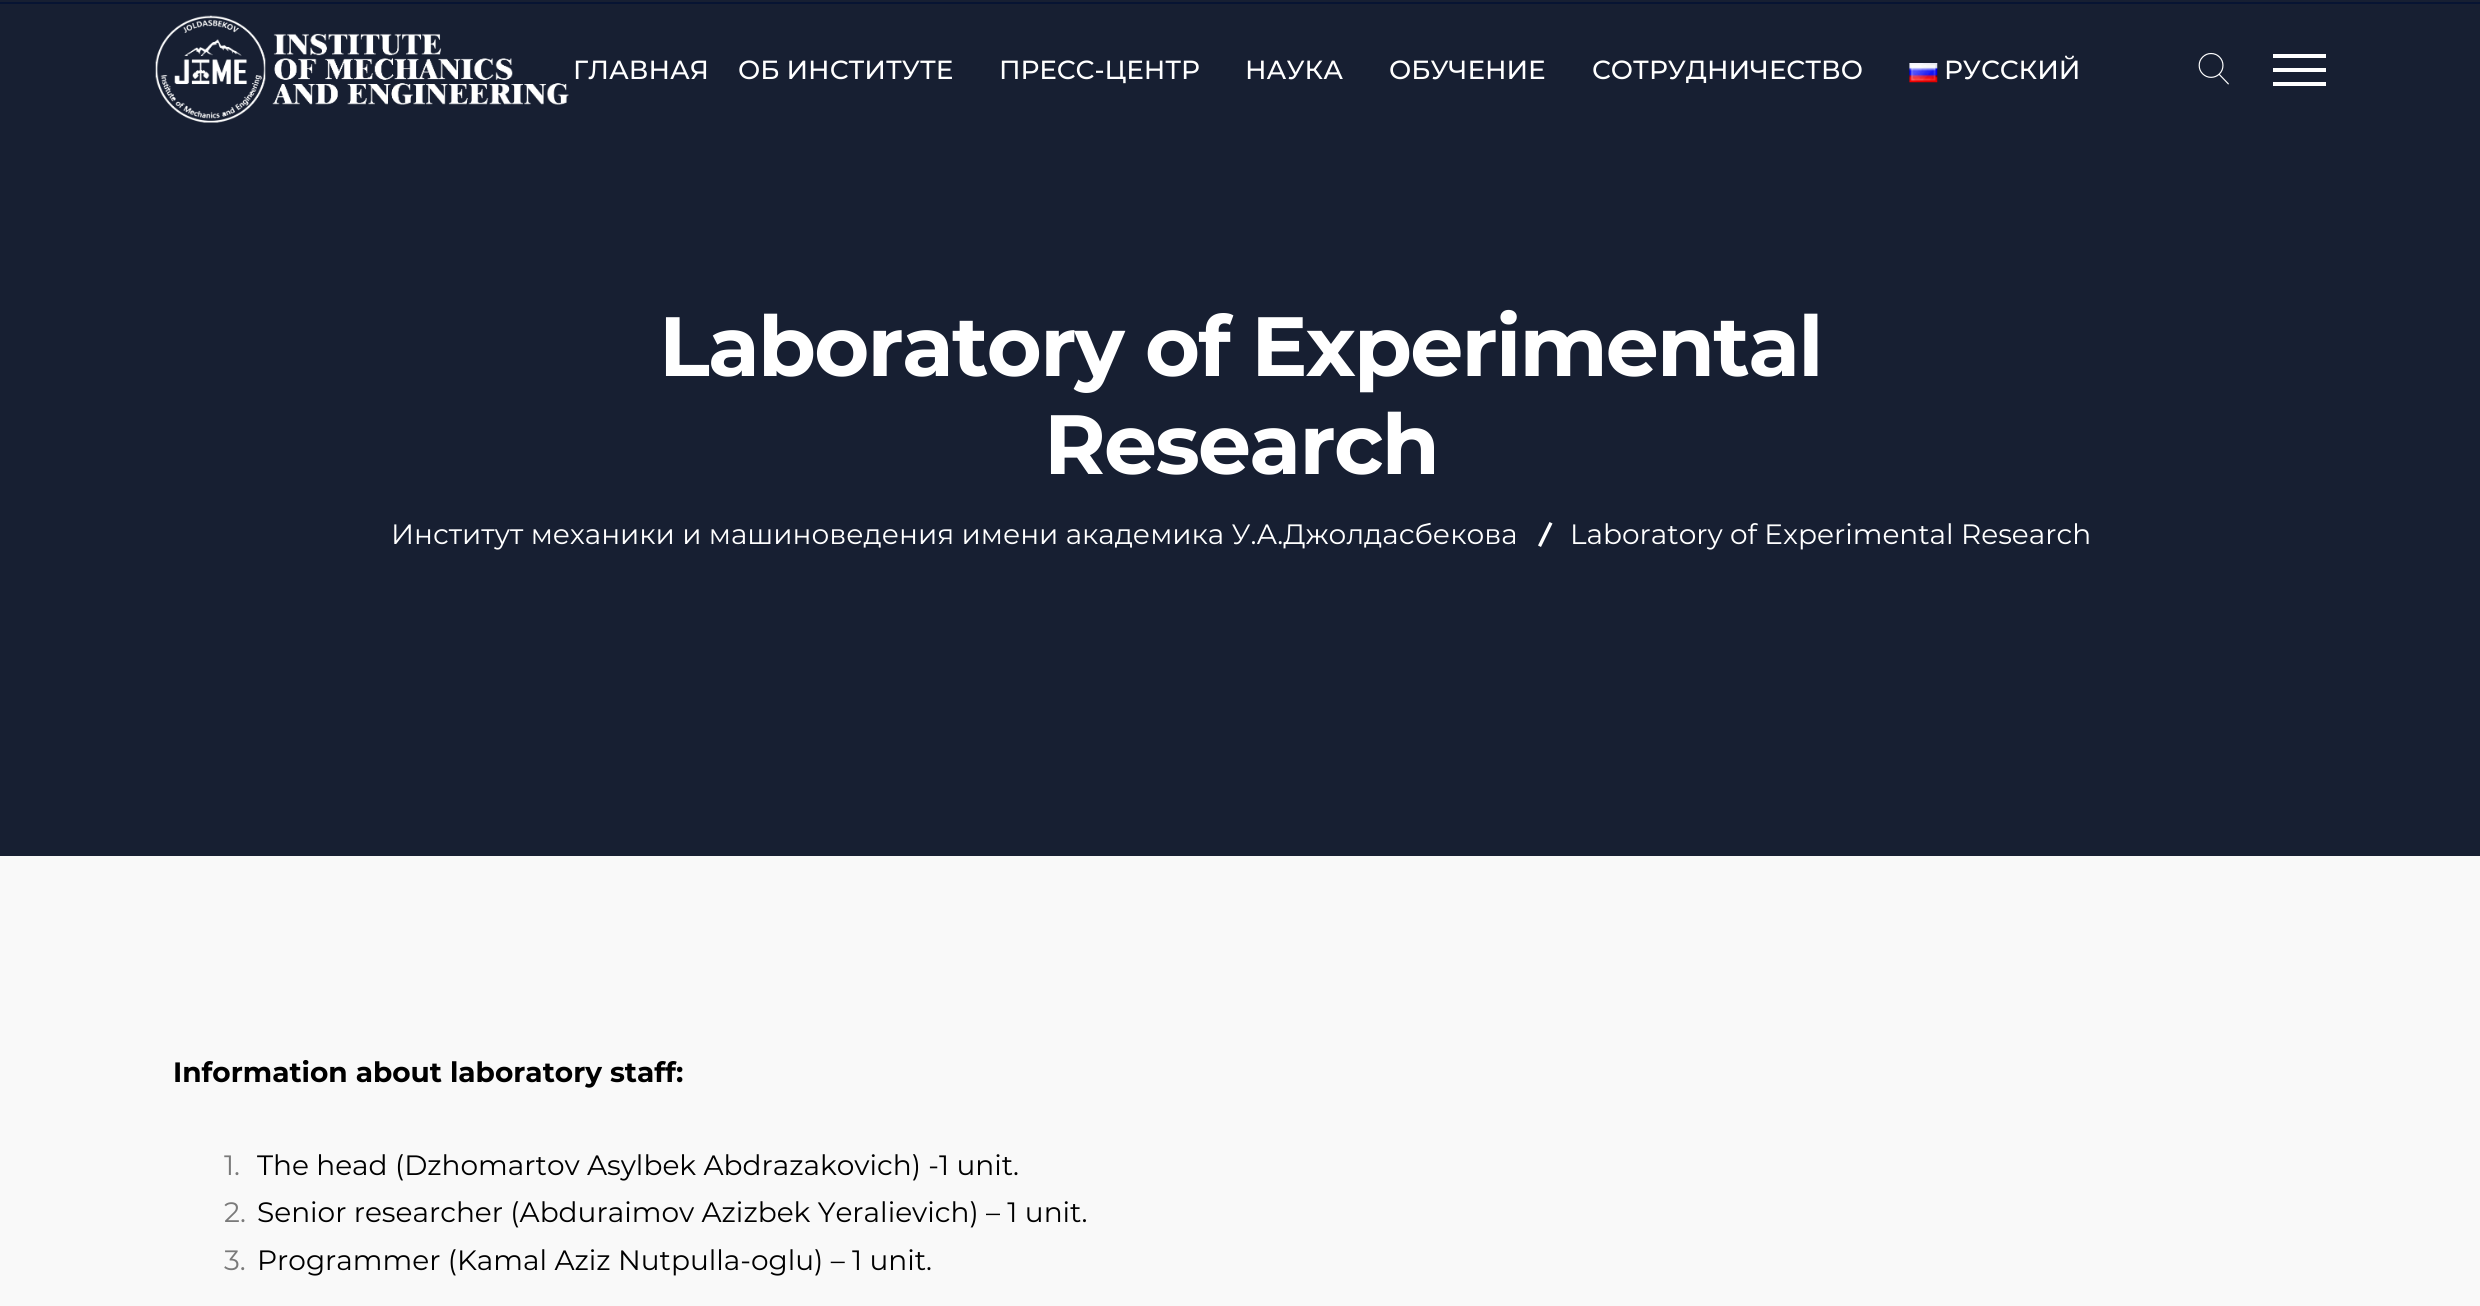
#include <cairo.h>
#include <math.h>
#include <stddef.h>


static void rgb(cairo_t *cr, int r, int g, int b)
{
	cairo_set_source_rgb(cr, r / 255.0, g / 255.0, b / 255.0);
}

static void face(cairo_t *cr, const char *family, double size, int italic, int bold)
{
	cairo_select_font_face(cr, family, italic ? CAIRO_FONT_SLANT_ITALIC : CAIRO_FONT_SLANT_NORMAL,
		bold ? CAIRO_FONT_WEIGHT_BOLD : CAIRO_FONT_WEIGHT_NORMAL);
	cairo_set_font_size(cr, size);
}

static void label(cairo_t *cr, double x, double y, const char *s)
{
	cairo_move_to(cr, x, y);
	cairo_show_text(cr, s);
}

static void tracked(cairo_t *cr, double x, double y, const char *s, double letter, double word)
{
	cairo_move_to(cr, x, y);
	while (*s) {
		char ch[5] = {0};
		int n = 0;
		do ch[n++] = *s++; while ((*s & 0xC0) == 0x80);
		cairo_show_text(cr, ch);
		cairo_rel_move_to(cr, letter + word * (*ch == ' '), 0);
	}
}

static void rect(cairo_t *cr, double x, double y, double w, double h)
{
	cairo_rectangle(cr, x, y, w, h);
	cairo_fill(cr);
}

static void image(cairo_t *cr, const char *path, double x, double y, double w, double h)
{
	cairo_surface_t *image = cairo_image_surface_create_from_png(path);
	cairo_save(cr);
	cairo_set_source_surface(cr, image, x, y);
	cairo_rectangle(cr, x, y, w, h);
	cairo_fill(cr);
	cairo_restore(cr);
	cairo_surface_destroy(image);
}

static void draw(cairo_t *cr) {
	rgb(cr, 249, 249, 249);
	cairo_paint(cr);
	rgb(cr, 23, 31, 50);
	rect(cr, 0, 0, 2480, 856);
	rgb(cr, 7, 20, 51);
	rect(cr, 0, 2, 2480, 2);
	image(cr, "image0.png", 155, 15, 414, 108);
	face(cr, "Montserrat Medium", 26.25, 0, 0);
	rgb(cr, 255, 255, 255);
	label(cr, 573, 79, "ГЛАВНАЯ");
	label(cr, 738, 79, "ОБ ИНСТИТУТЕ");
	label(cr, 999, 79, "ПРЕСС-ЦЕНТР");
	label(cr, 1245, 79, "НАУКА");
	label(cr, 1389, 79, "ОБУЧЕНИЕ");
	label(cr, 1592, 79, "СОТРУДНИЧЕСТВО");
	image(cr, "image1.png", 1909, 63, 29, 20);
	label(cr, 1944, 79, "РУССКИЙ");
	image(cr, "image2.png", 2198, 52, 31, 33);
	rect(cr, 2273, 54, 53, 4);
	rect(cr, 2273, 68, 53, 4);
	rect(cr, 2273, 82, 53, 4);
	face(cr, "Montserrat", 84, 0, 1);
	tracked(cr, 659, 376, "Laboratory of Experimental", -1.75, 0);
	tracked(cr, 1044, 474, "Research", -1.75, 0);
	face(cr, "Montserrat", 28, 0, 0);
	label(cr, 391, 544, "Институт механики и машиноведения имени академика У.А.Джолдасбекова");
	cairo_new_path(cr);
	cairo_move_to(cr, 1549.5, 522);
	cairo_line_to(cr, 1552.5, 523.5);
	cairo_line_to(cr, 1541, 547);
	cairo_line_to(cr, 1538, 545.5);
	cairo_close_path(cr);
	cairo_fill(cr);
	label(cr, 1570, 544, "Laboratory of Experimental Research");
	face(cr, "Montserrat", 28, 0, 1);
	rgb(cr, 0, 0, 0);
	label(cr, 173, 1082, "Information about laboratory staff:");
	face(cr, "Montserrat", 28, 0, 0);
	rgb(cr, 122, 122, 122);
	label(cr, 224, 1175, "1.");
	rgb(cr, 0, 0, 0);
	label(cr, 257, 1175, "The head (Dzhomartov Asylbek Abdrazakovich) -1 unit.");
	rgb(cr, 122, 122, 122);
	label(cr, 224, 1222, "2.");
	rgb(cr, 0, 0, 0);
	label(cr, 257, 1222, "Senior researcher (Abduraimov Azizbek Yeralievich) – 1 unit.");
	rgb(cr, 122, 122, 122);
	label(cr, 224, 1270, "3.");
	rgb(cr, 0, 0, 0);
	label(cr, 257, 1270, "Programmer (Kamal Aziz Nutpulla-oglu) – 1 unit.");
}

int main(void) {
	cairo_surface_t *surface = cairo_image_surface_create(CAIRO_FORMAT_RGB24, 2480, 1306);
	cairo_t *cr = cairo_create(surface);
	cairo_font_options_t *options = cairo_font_options_create();
	cairo_font_options_set_hint_metrics(options, CAIRO_HINT_METRICS_OFF);
	cairo_font_options_set_hint_style(options, CAIRO_HINT_STYLE_NONE);
	cairo_set_font_options(cr, options);
	cairo_set_miter_limit(cr, 4);
	draw(cr);
	cairo_surface_write_to_png(surface, "render.png");
	cairo_font_options_destroy(options);
	cairo_destroy(cr);
	cairo_surface_destroy(surface);
	return 0;
}
